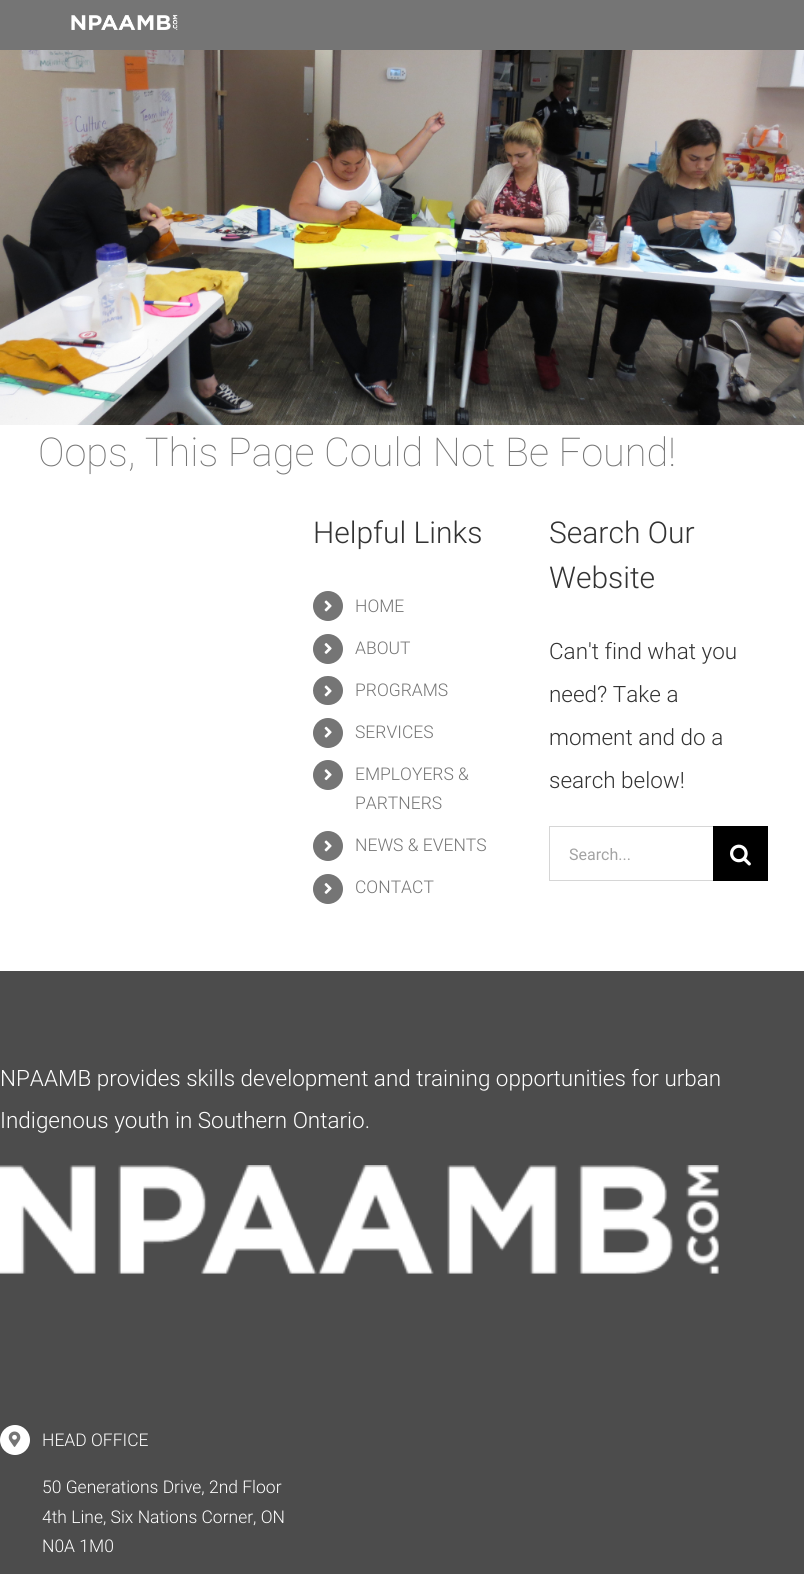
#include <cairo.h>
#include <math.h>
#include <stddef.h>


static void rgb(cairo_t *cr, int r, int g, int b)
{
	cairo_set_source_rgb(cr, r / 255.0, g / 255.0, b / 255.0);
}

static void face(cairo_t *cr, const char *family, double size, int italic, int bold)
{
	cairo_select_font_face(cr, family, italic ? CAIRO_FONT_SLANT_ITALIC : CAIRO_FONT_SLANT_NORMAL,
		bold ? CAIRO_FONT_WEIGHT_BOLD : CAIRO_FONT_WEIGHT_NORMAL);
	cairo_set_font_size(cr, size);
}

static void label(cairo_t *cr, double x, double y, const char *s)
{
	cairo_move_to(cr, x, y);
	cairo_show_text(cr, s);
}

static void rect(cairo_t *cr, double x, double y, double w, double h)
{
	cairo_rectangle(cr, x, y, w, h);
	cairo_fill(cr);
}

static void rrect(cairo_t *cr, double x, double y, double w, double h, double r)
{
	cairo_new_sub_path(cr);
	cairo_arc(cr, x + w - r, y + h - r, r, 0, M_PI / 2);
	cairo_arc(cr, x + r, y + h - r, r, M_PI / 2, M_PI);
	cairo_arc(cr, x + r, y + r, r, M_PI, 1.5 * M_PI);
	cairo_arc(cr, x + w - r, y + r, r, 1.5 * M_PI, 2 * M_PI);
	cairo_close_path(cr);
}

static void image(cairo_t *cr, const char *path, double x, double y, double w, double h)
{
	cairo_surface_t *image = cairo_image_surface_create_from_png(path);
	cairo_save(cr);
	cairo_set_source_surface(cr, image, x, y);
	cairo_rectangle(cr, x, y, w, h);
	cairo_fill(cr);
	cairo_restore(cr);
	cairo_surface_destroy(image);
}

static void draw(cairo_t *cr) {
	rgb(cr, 255, 255, 255);
	cairo_paint(cr);
	rgb(cr, 117, 117, 117);
	rect(cr, 0, 0, 804, 50);
	image(cr, "image0.png", 71, 15, 107, 15);
	image(cr, "image1.png", 0, 50, 804, 375);
	face(cr, "Roboto Thin", 39.75, 0, 0);
	label(cr, 38, 466, "Oops, This Page Could Not Be Found!");
	face(cr, "Roboto Light", 30, 0, 0);
	rgb(cr, 51, 51, 51);
	label(cr, 313, 543, "Helpful Links");
	rgb(cr, 117, 117, 117);
	cairo_new_path(cr);
	cairo_arc(cr, 328, 606, 15, 0, 2 * M_PI);
	cairo_fill(cr);
	image(cr, "image2.png", 324, 600, 8, 12);
	face(cr, "Roboto Light", 17.5, 0, 0);
	label(cr, 355, 612, "HOME");
	cairo_new_path(cr);
	cairo_arc(cr, 328, 649, 15, 0, 2 * M_PI);
	cairo_fill(cr);
	image(cr, "image3.png", 324, 643, 8, 11);
	label(cr, 355, 654, "ABOUT");
	rrect(cr, 313, 676, 30, 29, 14.5);
	cairo_fill(cr);
	image(cr, "image2.png", 324, 685, 8, 12);
	label(cr, 355, 696, "PROGRAMS");
	cairo_new_path(cr);
	cairo_arc(cr, 328, 733, 15, 0, 2 * M_PI);
	cairo_fill(cr);
	image(cr, "image4.png", 324, 726, 8, 12);
	label(cr, 355, 738, "SERVICES");
	cairo_new_path(cr);
	cairo_arc(cr, 328, 775, 15, 0, 2 * M_PI);
	cairo_fill(cr);
	image(cr, "image5.png", 324, 769, 8, 12);
	label(cr, 355, 780, "EMPLOYERS &");
	label(cr, 355, 809, "PARTNERS");
	cairo_new_path(cr);
	cairo_arc(cr, 328, 846, 15, 0, 2 * M_PI);
	cairo_fill(cr);
	image(cr, "image2.png", 324, 840, 8, 12);
	label(cr, 355, 851, "NEWS & EVENTS");
	cairo_new_path(cr);
	cairo_arc(cr, 328, 889, 15, 0, 2 * M_PI);
	cairo_fill(cr);
	image(cr, "image3.png", 324, 883, 8, 11);
	label(cr, 355, 893, "CONTACT");
	face(cr, "Roboto Light", 30, 0, 0);
	rgb(cr, 51, 51, 51);
	label(cr, 549, 543, "Search Our");
	label(cr, 549, 588, "Website");
	face(cr, "Roboto Light", 22.5, 0, 0);
	label(cr, 549, 659, "Can't find what you");
	label(cr, 549, 702, "need? Take a");
	label(cr, 549, 745, "moment and do a");
	label(cr, 549, 788, "search below!");
	rgb(cr, 214, 214, 214);
	rect(cr, 549, 826, 164, 1);
	rect(cr, 549, 880, 164, 1);
	rect(cr, 549, 826, 1, 55);
	face(cr, "Roboto", 16, 0, 0);
	rgb(cr, 163, 163, 163);
	label(cr, 569, 860, "Search...");
	rgb(cr, 0, 0, 0);
	rect(cr, 713, 826, 55, 55);
	image(cr, "image6.png", 730, 844, 21, 22);
	rgb(cr, 76, 76, 76);
	rect(cr, 0, 971, 804, 603);
	face(cr, "Roboto Light", 22.5, 0, 0);
	rgb(cr, 255, 255, 255);
	label(cr, 0, 1086, "NPAAMB provides skills development and training opportunities for urban");
	label(cr, 0, 1128, "Indigenous youth in Southern Ontario.");
	image(cr, "image7.png", 0, 1165, 719, 109);
	cairo_arc(cr, 15, 1440, 15, 0, 2 * M_PI);
	cairo_fill(cr);
	image(cr, "image8.png", 8, 1431, 13, 16);
	face(cr, "Roboto Light", 17.5, 0, 0);
	label(cr, 42, 1446, "HEAD OFFICE");
	label(cr, 42, 1493, "50 Generations Drive, 2nd Floor");
	label(cr, 42, 1523, "4th Line, Six Nations Corner, ON");
	label(cr, 42, 1552, "N0A 1M0");
}

int main(void) {
	cairo_surface_t *surface = cairo_image_surface_create(CAIRO_FORMAT_RGB24, 804, 1574);
	cairo_t *cr = cairo_create(surface);
	cairo_font_options_t *options = cairo_font_options_create();
	cairo_font_options_set_hint_metrics(options, CAIRO_HINT_METRICS_OFF);
	cairo_font_options_set_hint_style(options, CAIRO_HINT_STYLE_NONE);
	cairo_set_font_options(cr, options);
	cairo_set_miter_limit(cr, 4);
	draw(cr);
	cairo_surface_write_to_png(surface, "render.png");
	cairo_font_options_destroy(options);
	cairo_destroy(cr);
	cairo_surface_destroy(surface);
	return 0;
}
